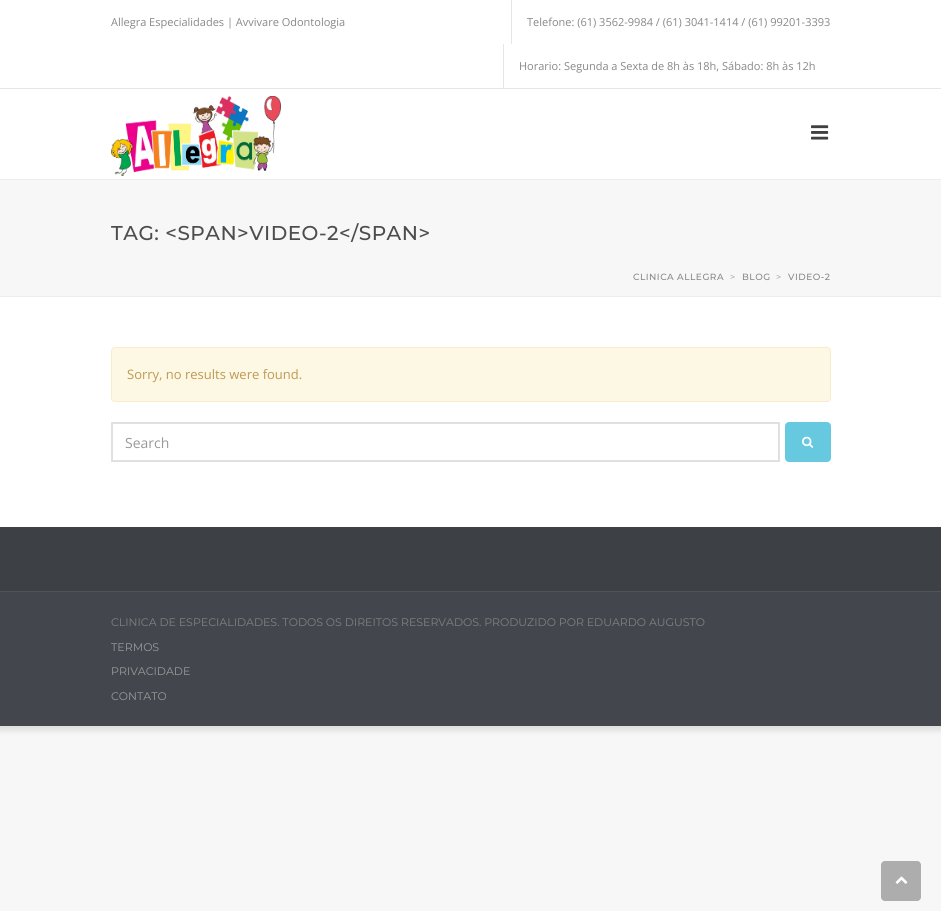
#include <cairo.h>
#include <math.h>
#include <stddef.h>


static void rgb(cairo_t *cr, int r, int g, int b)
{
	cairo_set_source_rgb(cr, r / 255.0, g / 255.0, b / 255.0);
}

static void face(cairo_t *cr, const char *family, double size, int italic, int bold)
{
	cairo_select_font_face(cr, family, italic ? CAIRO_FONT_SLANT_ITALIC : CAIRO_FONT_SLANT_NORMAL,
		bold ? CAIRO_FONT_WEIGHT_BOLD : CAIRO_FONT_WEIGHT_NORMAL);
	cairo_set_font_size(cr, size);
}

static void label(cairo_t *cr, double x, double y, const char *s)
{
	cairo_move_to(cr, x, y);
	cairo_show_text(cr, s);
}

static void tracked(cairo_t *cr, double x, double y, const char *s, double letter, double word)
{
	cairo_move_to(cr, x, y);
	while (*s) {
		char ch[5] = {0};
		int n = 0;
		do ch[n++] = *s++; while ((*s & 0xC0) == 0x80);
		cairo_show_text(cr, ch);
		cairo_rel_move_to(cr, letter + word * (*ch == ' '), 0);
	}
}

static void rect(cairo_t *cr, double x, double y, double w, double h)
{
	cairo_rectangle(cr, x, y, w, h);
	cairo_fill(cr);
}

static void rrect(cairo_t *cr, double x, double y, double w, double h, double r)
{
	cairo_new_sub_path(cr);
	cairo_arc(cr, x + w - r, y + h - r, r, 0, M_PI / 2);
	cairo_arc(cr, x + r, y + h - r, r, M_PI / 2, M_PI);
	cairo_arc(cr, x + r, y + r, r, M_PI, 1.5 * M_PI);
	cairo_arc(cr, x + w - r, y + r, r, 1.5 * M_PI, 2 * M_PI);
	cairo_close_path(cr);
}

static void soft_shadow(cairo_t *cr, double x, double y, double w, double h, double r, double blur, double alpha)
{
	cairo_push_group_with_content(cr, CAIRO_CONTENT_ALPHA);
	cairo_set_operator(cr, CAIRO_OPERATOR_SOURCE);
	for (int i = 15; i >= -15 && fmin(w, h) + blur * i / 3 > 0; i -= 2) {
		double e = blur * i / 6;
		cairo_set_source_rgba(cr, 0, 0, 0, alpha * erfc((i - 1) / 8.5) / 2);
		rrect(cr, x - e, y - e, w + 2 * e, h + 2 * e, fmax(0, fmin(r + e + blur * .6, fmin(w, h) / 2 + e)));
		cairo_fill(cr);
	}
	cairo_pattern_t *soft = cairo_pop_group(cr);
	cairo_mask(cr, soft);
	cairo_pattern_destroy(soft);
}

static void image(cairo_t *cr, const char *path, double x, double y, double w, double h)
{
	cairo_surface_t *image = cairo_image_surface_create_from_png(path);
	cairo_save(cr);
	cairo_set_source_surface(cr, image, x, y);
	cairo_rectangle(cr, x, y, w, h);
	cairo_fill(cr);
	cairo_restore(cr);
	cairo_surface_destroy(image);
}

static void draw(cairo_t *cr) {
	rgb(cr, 247, 247, 247);
	cairo_paint(cr);
	rgb(cr, 0, 0, 0);
	soft_shadow(cr, -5, -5, 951, 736, 0, 2.5, 0.1);
	rgb(cr, 255, 255, 255);
	rect(cr, 0, 0, 941, 527);
	rgb(cr, 230, 230, 230);
	rect(cr, 0, 88, 941, 1);
	face(cr, "Open Sans", 11, 0, 0);
	rgb(cr, 136, 136, 136);
	label(cr, 111, 26, "Allegra Especialidades | Avvivare Odontologia");
	rgb(cr, 230, 230, 230);
	rect(cr, 511, 0, 1, 44);
	rgb(cr, 136, 136, 136);
	label(cr, 527, 26, "Telefone: (61) 3562-9984 / (61) 3041-1414 / (61) 99201-3393");
	rgb(cr, 230, 230, 230);
	rect(cr, 503, 44, 1, 44);
	rgb(cr, 136, 136, 136);
	label(cr, 519, 70, "Horario: Segunda a Sexta de 8h às 18h, Sábado: 8h às 12h");
	image(cr, "image0.png", 111, 96, 170, 80);
	image(cr, "image1.png", 811, 125, 18, 15);
	rgb(cr, 247, 247, 247);
	rect(cr, 0, 180, 941, 116);
	rgb(cr, 237, 237, 237);
	rect(cr, 0, 179, 941, 1);
	rect(cr, 0, 296, 941, 1);
	face(cr, "Montserrat Medium", 20, 0, 0);
	rgb(cr, 77, 77, 77);
	tracked(cr, 111, 240, "TAG: <SPAN>VIDEO-2</SPAN>", 0.5, 0);
	face(cr, "Montserrat Medium", 9, 0, 0);
	rgb(cr, 136, 136, 136);
	tracked(cr, 633, 280, "CLINICA ALLEGRA", 0.5, 0);
	rgb(cr, 175, 175, 175);
	tracked(cr, 730, 280, ">", 0.5, 0);
	rgb(cr, 136, 136, 136);
	tracked(cr, 742, 280, "BLOG", 0.5, 0);
	rgb(cr, 175, 175, 175);
	tracked(cr, 776, 280, ">", 0.5, 0);
	rgb(cr, 136, 136, 136);
	tracked(cr, 788, 280, "VIDEO-2", 0.5, 0);
	rgb(cr, 252, 248, 227);
	rrect(cr, 111.5, 347.5, 719, 54, 3.5);
	cairo_fill_preserve(cr);
	rgb(cr, 250, 235, 204);
	cairo_set_line_width(cr, 1);
	cairo_stroke(cr);
	face(cr, "Open Sans", 13, 0, 0);
	rgb(cr, 192, 152, 83);
	label(cr, 127, 379, "Sorry, no results were found.");
	cairo_rectangle(cr, 112, 423, 667, 38);
	rgb(cr, 224, 224, 224);
	cairo_set_line_width(cr, 2);
	cairo_stroke(cr);
	face(cr, "Open Sans", 14, 0, 0);
	rgb(cr, 153, 153, 153);
	label(cr, 125, 448, "Search");
	rgb(cr, 103, 201, 224);
	rrect(cr, 786, 423, 44, 38, 3);
	cairo_fill_preserve(cr);
	cairo_stroke(cr);
	image(cr, "image2.png", 802, 436, 11, 12);
	rgb(cr, 61, 64, 69);
	rect(cr, 0, 527, 941, 64);
	rgb(cr, 67, 71, 77);
	rect(cr, 0, 592, 941, 134);
	rgb(cr, 80, 84, 89);
	rect(cr, 0, 591, 941, 1);
	face(cr, "Montserrat", 11, 0, 0);
	rgb(cr, 128, 128, 128);
	label(cr, 111, 626, "CLINICA DE ESPECIALIDADES. TODOS OS DIREITOS RESERVADOS. PRODUZIDO POR EDUARDO AUGUSTO");
	rgb(cr, 153, 153, 153);
	label(cr, 111, 651, "TERMOS");
	label(cr, 111, 675, "PRIVACIDADE");
	label(cr, 111, 700, "CONTATO");
	rgb(cr, 173, 173, 173);
	rrect(cr, 881, 861, 40, 40, 4);
	cairo_fill(cr);
	image(cr, "image3.png", 895, 876, 13, 8);
}

int main(void) {
	cairo_surface_t *surface = cairo_image_surface_create(CAIRO_FORMAT_RGB24, 941, 911);
	cairo_t *cr = cairo_create(surface);
	cairo_font_options_t *options = cairo_font_options_create();
	cairo_font_options_set_hint_metrics(options, CAIRO_HINT_METRICS_OFF);
	cairo_font_options_set_hint_style(options, CAIRO_HINT_STYLE_NONE);
	cairo_set_font_options(cr, options);
	cairo_set_miter_limit(cr, 4);
	draw(cr);
	cairo_surface_write_to_png(surface, "render.png");
	cairo_font_options_destroy(options);
	cairo_destroy(cr);
	cairo_surface_destroy(surface);
	return 0;
}
